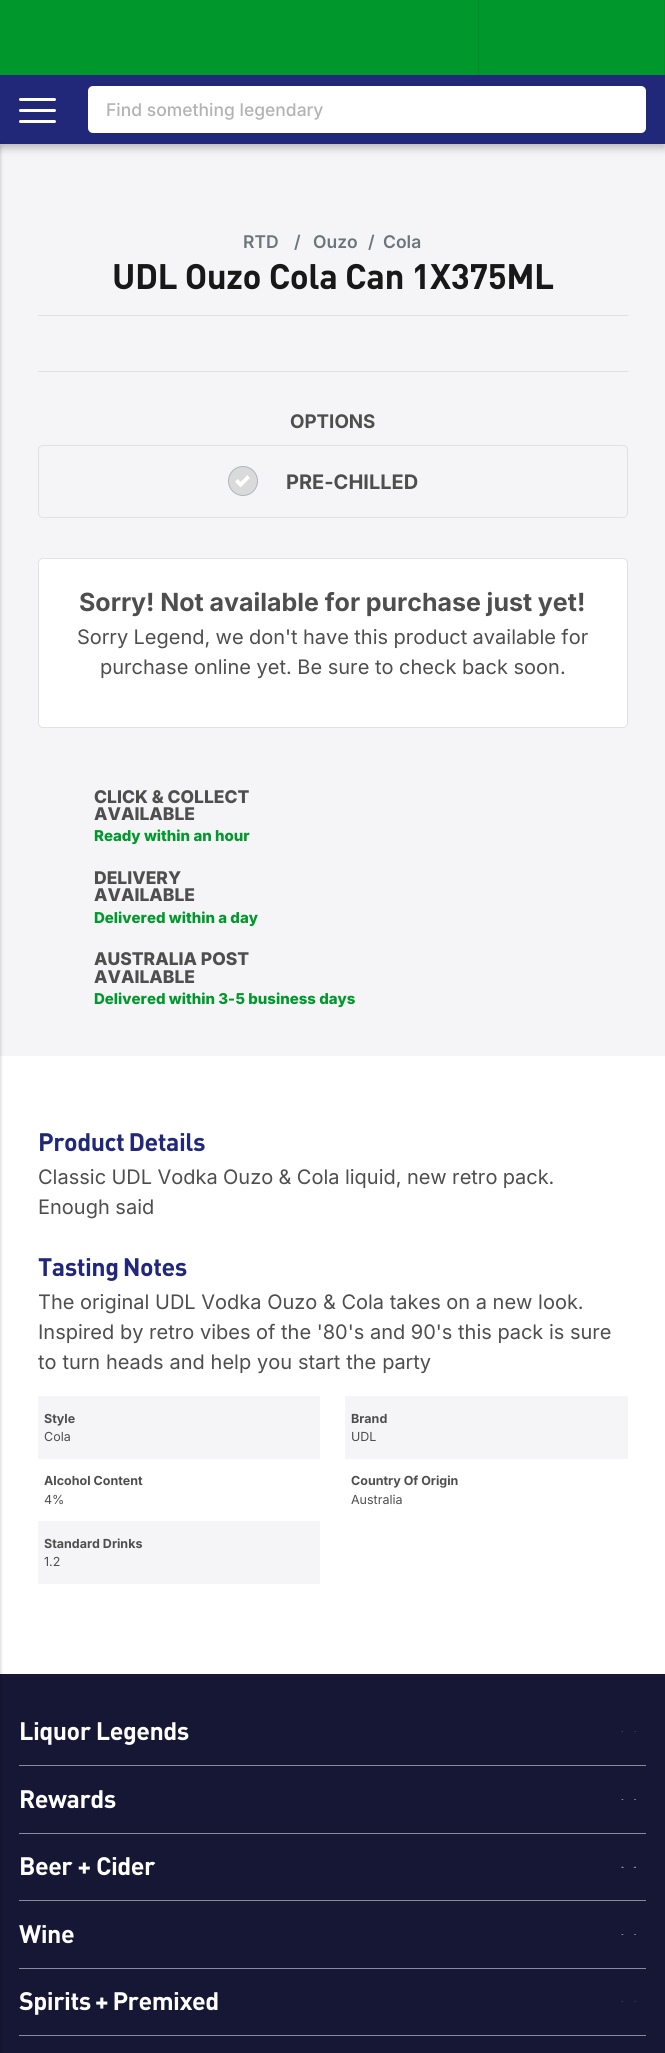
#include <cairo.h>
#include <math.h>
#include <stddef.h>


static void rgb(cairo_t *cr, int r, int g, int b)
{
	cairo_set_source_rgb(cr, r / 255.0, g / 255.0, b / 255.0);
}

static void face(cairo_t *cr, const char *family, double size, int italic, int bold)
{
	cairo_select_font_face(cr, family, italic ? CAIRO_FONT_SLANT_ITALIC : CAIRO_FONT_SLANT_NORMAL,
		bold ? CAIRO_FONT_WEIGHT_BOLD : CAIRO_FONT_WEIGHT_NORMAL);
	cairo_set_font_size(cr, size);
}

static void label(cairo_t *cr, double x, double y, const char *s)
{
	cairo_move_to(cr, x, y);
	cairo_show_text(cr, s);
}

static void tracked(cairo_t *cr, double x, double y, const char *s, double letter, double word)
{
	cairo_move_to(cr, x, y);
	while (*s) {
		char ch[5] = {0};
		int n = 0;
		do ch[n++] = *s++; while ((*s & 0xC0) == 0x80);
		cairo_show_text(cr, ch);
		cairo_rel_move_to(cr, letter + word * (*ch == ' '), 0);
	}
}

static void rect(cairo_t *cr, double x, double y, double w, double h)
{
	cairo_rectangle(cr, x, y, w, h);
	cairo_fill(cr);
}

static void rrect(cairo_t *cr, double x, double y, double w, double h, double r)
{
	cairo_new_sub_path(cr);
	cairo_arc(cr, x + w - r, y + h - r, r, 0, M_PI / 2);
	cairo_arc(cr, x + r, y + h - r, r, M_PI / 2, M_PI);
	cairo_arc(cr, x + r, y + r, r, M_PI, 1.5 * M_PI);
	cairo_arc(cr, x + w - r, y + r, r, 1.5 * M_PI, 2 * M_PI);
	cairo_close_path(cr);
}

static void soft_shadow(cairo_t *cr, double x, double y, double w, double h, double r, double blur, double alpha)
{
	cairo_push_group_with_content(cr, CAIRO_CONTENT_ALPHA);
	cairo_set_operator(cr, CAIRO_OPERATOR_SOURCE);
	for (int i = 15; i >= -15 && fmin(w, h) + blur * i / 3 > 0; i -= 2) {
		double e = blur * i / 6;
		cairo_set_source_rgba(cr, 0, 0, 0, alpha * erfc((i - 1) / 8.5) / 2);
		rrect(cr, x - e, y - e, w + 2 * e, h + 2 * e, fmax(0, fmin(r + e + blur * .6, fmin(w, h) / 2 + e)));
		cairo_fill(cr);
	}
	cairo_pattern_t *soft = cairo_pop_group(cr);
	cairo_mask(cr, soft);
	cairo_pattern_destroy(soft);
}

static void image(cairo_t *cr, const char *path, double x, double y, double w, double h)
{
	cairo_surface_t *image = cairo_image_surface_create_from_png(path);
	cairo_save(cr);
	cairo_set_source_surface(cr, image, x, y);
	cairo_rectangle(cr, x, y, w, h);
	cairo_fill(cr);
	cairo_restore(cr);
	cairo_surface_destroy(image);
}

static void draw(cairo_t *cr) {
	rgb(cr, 255, 255, 255);
	cairo_paint(cr);
	rgb(cr, 245, 245, 247);
	rect(cr, 0, 144, 665, 912);
	rgb(cr, 0, 0, 0);
	soft_shadow(cr, 0, 4, 665, 144, 0, 4, 0.25);
	rgb(cr, 0, 152, 44);
	rect(cr, 0, 0, 664, 75);
	rgb(cr, 0, 140, 44);
	rect(cr, 664, 0, 1, 75);
	rect(cr, 478, 0, 1, 75);
	rgb(cr, 33, 40, 122);
	rect(cr, 0, 75, 665, 69);
	rgb(cr, 255, 255, 255);
	rrect(cr, 19, 98, 37, 3, 1.5);
	cairo_fill(cr);
	rrect(cr, 19, 109, 37, 3, 1.5);
	cairo_fill(cr);
	rrect(cr, 19, 120, 37, 3, 1.5);
	cairo_fill(cr);
	rrect(cr, 88, 86, 558, 47, 5);
	cairo_fill(cr);
	face(cr, "Inter Medium", 17.5, 0, 0);
	rgb(cr, 179, 179, 179);
	label(cr, 106, 116, "Find something legendary");
	rgb(cr, 21, 23, 52);
	rect(cr, 0, 1674, 665, 379);
	rgb(cr, 0, 0, 0);
	soft_shadow(cr, -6, 144, 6, 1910, 0, 2, 0.25);
	face(cr, "Inter SemiBold", 17.5, 0, 0);
	rgb(cr, 108, 117, 125);
	label(cr, 243, 248, "RTD");
	label(cr, 294, 248, "/");
	label(cr, 313, 248, "Ouzo");
	label(cr, 368, 248, "/");
	label(cr, 383, 248, "Cola");
	face(cr, "DIN", 35, 0, 1);
	rgb(cr, 24, 24, 24);
	tracked(cr, 112, 289, "UDL Ouzo Cola Can 1X375ML", -0.5, 0);
	rgb(cr, 224, 224, 229);
	rect(cr, 38, 315, 590, 1);
	rect(cr, 38, 371, 590, 1);
	face(cr, "Inter", 18.75, 0, 1);
	rgb(cr, 78, 78, 78);
	label(cr, 290, 428, "OPTIONS");
	rrect(cr, 38.5, 445.5, 589, 72, 4.5);
	rgb(cr, 222, 226, 230);
	cairo_set_line_width(cr, 1);
	cairo_stroke(cr);
	rgb(cr, 218, 218, 218);
	cairo_arc(cr, 243, 481, 14.5, 0, 2 * M_PI);
	cairo_fill_preserve(cr);
	rgb(cr, 173, 181, 189);
	cairo_stroke(cr);
	face(cr, "Inter", 20, 0, 1);
	rgb(cr, 78, 78, 78);
	label(cr, 286, 489, "PRE-CHILLED");
	image(cr, "image0.png", 235, 475, 15, 13);
	rgb(cr, 255, 255, 255);
	rrect(cr, 38, 558, 590, 170, 5);
	cairo_fill(cr);
	rrect(cr, 38.5, 558.5, 589, 169, 4.5);
	cairo_set_source_rgba(cr, 0, 0, 0, 0.12);
	cairo_stroke(cr);
	face(cr, "Inter", 25, 0, 1);
	rgb(cr, 78, 78, 78);
	tracked(cr, 79, 611, "Sorry! Not available for purchase just yet!", 0, -0.25);
	face(cr, "Inter", 20, 0, 0);
	tracked(cr, 77, 644, "Sorry Legend, we don't have this product available for", 0, -0.25);
	label(cr, 100, 674, "purchase online yet. Be sure to check back soon.");
	face(cr, "Inter ExtraBold", 17.5, 0, 0);
	label(cr, 94, 803, "CLICK & COLLECT");
	label(cr, 94, 820, "AVAILABLE");
	face(cr, "Inter ExtraBold", 15, 0, 0);
	rgb(cr, 0, 152, 44);
	label(cr, 94, 841, "Ready within an hour");
	face(cr, "Inter ExtraBold", 17.5, 0, 0);
	rgb(cr, 78, 78, 78);
	label(cr, 94, 884, "DELIVERY");
	label(cr, 94, 901, "AVAILABLE");
	face(cr, "Inter ExtraBold", 15, 0, 0);
	rgb(cr, 0, 152, 44);
	label(cr, 94, 923, "Delivered within a day");
	face(cr, "Inter ExtraBold", 17.5, 0, 0);
	rgb(cr, 78, 78, 78);
	label(cr, 94, 965, "AUSTRALIA POST");
	label(cr, 94, 983, "AVAILABLE");
	face(cr, "Inter ExtraBold", 15, 0, 0);
	rgb(cr, 0, 152, 44);
	label(cr, 94, 1004, "Delivered within 3-5 business days");
	face(cr, "DIN", 25, 0, 1);
	rgb(cr, 33, 40, 122);
	tracked(cr, 38, 1151, "Product Details", -0.5, -1);
	face(cr, "Inter", 20, 0, 0);
	rgb(cr, 78, 78, 78);
	tracked(cr, 38, 1184, "Classic UDL Vodka Ouzo & Cola liquid, new retro pack.", 0, -0.25);
	label(cr, 38, 1214, "Enough said");
	face(cr, "DIN", 25, 0, 1);
	rgb(cr, 33, 40, 122);
	tracked(cr, 38, 1276, "Tasting Notes", -0.5, -1);
	face(cr, "Inter", 20, 0, 0);
	rgb(cr, 78, 78, 78);
	label(cr, 38, 1309, "The original UDL Vodka Ouzo & Cola takes on a new look.");
	label(cr, 38, 1339, "Inspired by retro vibes of the '80's and 90's this pack is sure");
	tracked(cr, 38, 1369, "to turn heads and help you start the party", 0, 0.25);
	rgb(cr, 245, 245, 247);
	rect(cr, 38, 1396, 282, 63);
	face(cr, "Inter", 12.5, 0, 1);
	rgb(cr, 78, 78, 78);
	label(cr, 44, 1423, "Style");
	face(cr, "Inter", 12.5, 0, 0);
	label(cr, 44, 1441, "Cola");
	face(cr, "Inter", 12.5, 0, 1);
	label(cr, 44, 1485, "Alcohol Content");
	face(cr, "Inter", 12.5, 0, 0);
	label(cr, 44, 1504, "4%");
	rgb(cr, 245, 245, 247);
	rect(cr, 38, 1521, 282, 63);
	face(cr, "Inter", 12.5, 0, 1);
	rgb(cr, 78, 78, 78);
	label(cr, 44, 1548, "Standard Drinks");
	face(cr, "Inter", 12.5, 0, 0);
	label(cr, 44, 1566, "1.2");
	rgb(cr, 245, 245, 247);
	rect(cr, 345, 1396, 283, 63);
	face(cr, "Inter", 12.5, 0, 1);
	rgb(cr, 78, 78, 78);
	label(cr, 351, 1423, "Brand");
	face(cr, "Inter", 12.5, 0, 0);
	label(cr, 351, 1441, "UDL");
	face(cr, "Inter", 12.5, 0, 1);
	label(cr, 351, 1485, "Country Of Origin");
	face(cr, "Inter", 12.5, 0, 0);
	label(cr, 351, 1504, "Australia");
	rgb(cr, 138, 139, 154);
	rect(cr, 19, 1765, 627, 1);
	face(cr, "DIN", 25, 0, 1);
	rgb(cr, 255, 255, 255);
	tracked(cr, 19, 1740, "Liquor Legends", -0.5, 0);
	image(cr, "image1.png", 621, 1731, 15, 1);
	rgb(cr, 138, 139, 154);
	rect(cr, 19, 1833, 627, 1);
	rgb(cr, 255, 255, 255);
	tracked(cr, 19, 1808, "Rewards", -0.5, 0);
	image(cr, "image2.png", 621, 1799, 15, 1);
	rgb(cr, 138, 139, 154);
	rect(cr, 19, 1900, 627, 1);
	rgb(cr, 255, 255, 255);
	tracked(cr, 19, 1875, "Beer + Cider", -0.5, 0);
	image(cr, "image3.png", 621, 1866, 15, 2);
	rgb(cr, 138, 139, 154);
	rect(cr, 19, 1968, 627, 1);
	rgb(cr, 255, 255, 255);
	tracked(cr, 19, 1943, "Wine", -0.5, 0);
	image(cr, "image2.png", 621, 1934, 15, 1);
	rgb(cr, 138, 139, 154);
	rect(cr, 19, 2035, 627, 1);
	rgb(cr, 255, 255, 255);
	tracked(cr, 19, 2010, "Spirits + Premixed", -0.5, -1);
	image(cr, "image1.png", 621, 2001, 15, 1);
}

int main(void) {
	cairo_surface_t *surface = cairo_image_surface_create(CAIRO_FORMAT_RGB24, 665, 2053);
	cairo_t *cr = cairo_create(surface);
	cairo_font_options_t *options = cairo_font_options_create();
	cairo_font_options_set_hint_metrics(options, CAIRO_HINT_METRICS_OFF);
	cairo_font_options_set_hint_style(options, CAIRO_HINT_STYLE_NONE);
	cairo_set_font_options(cr, options);
	cairo_set_miter_limit(cr, 4);
	draw(cr);
	cairo_surface_write_to_png(surface, "render.png");
	cairo_font_options_destroy(options);
	cairo_destroy(cr);
	cairo_surface_destroy(surface);
	return 0;
}
